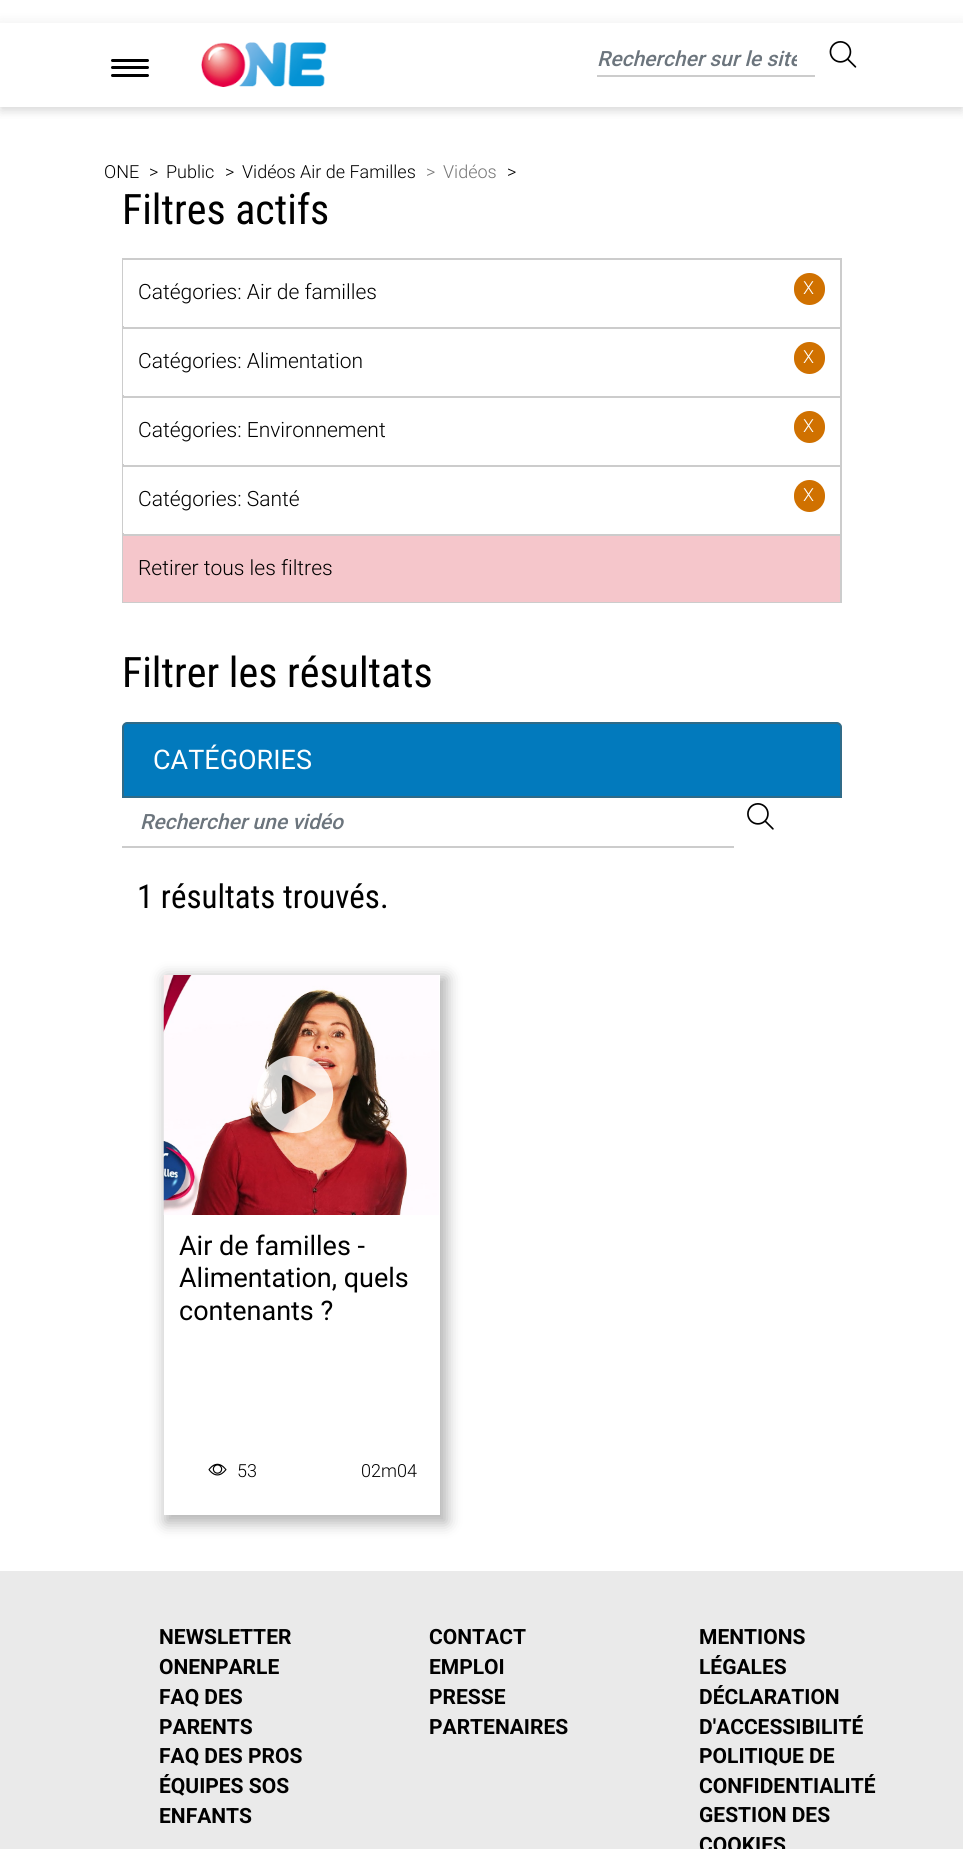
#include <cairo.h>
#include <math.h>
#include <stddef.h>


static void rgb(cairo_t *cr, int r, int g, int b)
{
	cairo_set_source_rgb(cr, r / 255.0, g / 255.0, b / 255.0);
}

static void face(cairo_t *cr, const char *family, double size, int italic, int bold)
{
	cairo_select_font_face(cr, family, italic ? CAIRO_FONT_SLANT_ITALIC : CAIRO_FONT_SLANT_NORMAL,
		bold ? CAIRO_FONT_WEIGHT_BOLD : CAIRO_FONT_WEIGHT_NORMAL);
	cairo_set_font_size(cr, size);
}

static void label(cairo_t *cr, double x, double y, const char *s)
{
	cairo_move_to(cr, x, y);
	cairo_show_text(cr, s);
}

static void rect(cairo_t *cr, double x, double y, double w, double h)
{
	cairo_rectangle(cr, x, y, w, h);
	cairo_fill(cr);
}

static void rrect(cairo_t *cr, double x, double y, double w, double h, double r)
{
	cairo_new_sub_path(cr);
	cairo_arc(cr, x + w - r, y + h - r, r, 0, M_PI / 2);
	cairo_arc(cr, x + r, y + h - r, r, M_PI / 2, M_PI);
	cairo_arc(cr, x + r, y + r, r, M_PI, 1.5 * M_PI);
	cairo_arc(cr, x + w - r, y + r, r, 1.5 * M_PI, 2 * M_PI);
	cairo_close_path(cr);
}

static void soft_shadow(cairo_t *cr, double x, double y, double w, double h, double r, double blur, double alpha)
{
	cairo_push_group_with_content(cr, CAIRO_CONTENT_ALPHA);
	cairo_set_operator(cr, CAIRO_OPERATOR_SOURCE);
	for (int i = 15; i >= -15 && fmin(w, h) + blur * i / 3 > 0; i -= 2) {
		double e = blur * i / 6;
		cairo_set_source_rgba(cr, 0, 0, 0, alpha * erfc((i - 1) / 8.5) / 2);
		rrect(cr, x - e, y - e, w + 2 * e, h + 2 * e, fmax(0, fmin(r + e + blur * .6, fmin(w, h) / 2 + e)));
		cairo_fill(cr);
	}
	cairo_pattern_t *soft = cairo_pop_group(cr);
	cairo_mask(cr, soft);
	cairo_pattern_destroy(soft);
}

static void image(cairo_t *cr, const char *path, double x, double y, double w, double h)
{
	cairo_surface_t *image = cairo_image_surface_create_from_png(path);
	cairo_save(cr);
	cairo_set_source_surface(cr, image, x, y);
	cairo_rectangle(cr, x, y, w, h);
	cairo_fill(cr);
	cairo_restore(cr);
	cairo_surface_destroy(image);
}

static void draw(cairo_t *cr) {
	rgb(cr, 255, 255, 255);
	cairo_paint(cr);
	rgb(cr, 0, 0, 0);
	soft_shadow(cr, 0, 24, 963, 84, 0, 7.5, 0.08);
	soft_shadow(cr, 0, 29, 963, 84, 0, 4, 0.06);
	soft_shadow(cr, 2, 27, 960, 81, 0, 3, 0.06);
	rgb(cr, 255, 255, 255);
	rect(cr, 0, 23, 963, 84);
	rgb(cr, 0, 0, 0);
	rrect(cr, 111, 59, 38, 3, 1.5);
	cairo_fill(cr);
	rrect(cr, 111, 66, 38, 3, 1.5);
	cairo_fill(cr);
	rrect(cr, 111, 74, 38, 3, 1.5);
	cairo_fill(cr);
	image(cr, "image0.png", 201, 42, 126, 45);
	rgb(cr, 204, 204, 204);
	rect(cr, 597, 75, 218, 2);
	cairo_save(cr);
	cairo_rectangle(cr, 597, 47, 200, 24);
	cairo_clip(cr);
	face(cr, "Roboto Medium", 21, 1, 0);
	rgb(cr, 108, 117, 125);
	label(cr, 597, 66, "Rechercher sur le site");
	cairo_restore(cr);
	image(cr, "image1.png", 829, 41, 28, 27);
	face(cr, "Roboto Light", 18, 0, 0);
	rgb(cr, 0, 0, 0);
	label(cr, 104, 178, "ONE");
	label(cr, 149, 178, ">");
	label(cr, 166, 178, "Public");
	label(cr, 225, 178, ">");
	label(cr, 242, 178, "Vidéos Air de Familles");
	rgb(cr, 118, 118, 118);
	label(cr, 426, 178, ">");
	label(cr, 443, 178, "Vidéos");
	rgb(cr, 0, 0, 0);
	label(cr, 507, 178, ">");
	face(cr, "Roboto Condensed", 42, 0, 0);
	label(cr, 122, 224, "Filtres actifs");
	cairo_rectangle(cr, 123, 259, 718, 343);
	rgb(cr, 204, 204, 204);
	cairo_stroke(cr);
	rgb(cr, 255, 255, 255);
	rect(cr, 123, 260, 1, 66);
	face(cr, "Roboto Light", 21, 0, 0);
	rgb(cr, 0, 0, 0);
	label(cr, 138, 299, "Catégories: Air de familles");
	rgb(cr, 208, 113, 0);
	rrect(cr, 794, 273, 31, 32, 15.5);
	cairo_fill(cr);
	face(cr, "Roboto Light", 18, 0, 0);
	rgb(cr, 255, 255, 255);
	label(cr, 803, 294, "X");
	rect(cr, 123, 329, 1, 66);
	rgb(cr, 204, 204, 204);
	rect(cr, 123, 327, 717, 2);
	face(cr, "Roboto Light", 21, 0, 0);
	rgb(cr, 0, 0, 0);
	label(cr, 138, 368, "Catégories: Alimentation");
	rgb(cr, 208, 113, 0);
	rrect(cr, 794, 342, 31, 32, 15.5);
	cairo_fill(cr);
	face(cr, "Roboto Light", 18, 0, 0);
	rgb(cr, 255, 255, 255);
	label(cr, 803, 363, "X");
	rect(cr, 123, 398, 1, 66);
	rgb(cr, 204, 204, 204);
	rect(cr, 123, 396, 717, 2);
	face(cr, "Roboto Light", 21, 0, 0);
	rgb(cr, 0, 0, 0);
	label(cr, 138, 437, "Catégories: Environnement");
	rgb(cr, 208, 113, 0);
	rrect(cr, 794, 411, 31, 32, 15.5);
	cairo_fill(cr);
	face(cr, "Roboto Light", 18, 0, 0);
	rgb(cr, 255, 255, 255);
	label(cr, 803, 432, "X");
	rect(cr, 123, 467, 1, 66);
	rgb(cr, 204, 204, 204);
	rect(cr, 123, 465, 717, 2);
	face(cr, "Roboto Light", 21, 0, 0);
	rgb(cr, 0, 0, 0);
	label(cr, 138, 506, "Catégories: Santé");
	rgb(cr, 208, 113, 0);
	rrect(cr, 794, 480, 31, 32, 15.5);
	cairo_fill(cr);
	face(cr, "Roboto Light", 18, 0, 0);
	rgb(cr, 255, 255, 255);
	label(cr, 803, 501, "X");
	rgb(cr, 245, 198, 203);
	rect(cr, 123, 536, 717, 66);
	rgb(cr, 204, 204, 204);
	rect(cr, 123, 534, 717, 2);
	face(cr, "Roboto Light", 21, 0, 0);
	rgb(cr, 0, 0, 0);
	label(cr, 138, 575, "Retirer tous les filtres");
	face(cr, "Roboto Condensed", 42, 0, 0);
	label(cr, 122, 687, "Filtrer les résultats");
	rgb(cr, 2, 122, 189);
	cairo_new_path(cr);
	cairo_move_to(cr, 127, 723);
	cairo_line_to(cr, 837, 723);
	cairo_curve_to(cr, 839, 723, 841, 725, 841, 727);
	cairo_line_to(cr, 841, 797);
	cairo_line_to(cr, 123, 797);
	cairo_line_to(cr, 123, 727);
	cairo_curve_to(cr, 123, 725, 125, 723, 127, 723);
	cairo_close_path(cr);
	cairo_fill_preserve(cr);
	rgb(cr, 48, 107, 136);
	cairo_stroke(cr);
	face(cr, "Roboto", 27, 0, 0);
	rgb(cr, 255, 255, 255);
	label(cr, 153, 769, "CATÉGORIES");
	rgb(cr, 204, 204, 204);
	rect(cr, 122, 846, 612, 2);
	face(cr, "Roboto Medium", 21, 1, 0);
	rgb(cr, 108, 117, 125);
	label(cr, 140, 829, "Rechercher une vidéo");
	image(cr, "image2.png", 747, 803, 27, 27);
	face(cr, "Roboto Condensed", 33, 0, 0);
	rgb(cr, 0, 0, 0);
	label(cr, 137, 908, "1 résultats trouvés.");
	rgb(cr, 0, 0, 0);
	soft_shadow(cr, 165, 977, 282, 546, 0, 7.5, 0.3);
	rgb(cr, 255, 255, 255);
	rect(cr, 164, 975, 276, 540);
	image(cr, "image3.png", 163, 975, 276, 240);
	cairo_set_source_rgba(cr, 1, 1, 1, 0.8);
	cairo_new_path(cr);
	cairo_move_to(cr, 276, 1061);
	cairo_curve_to(cr, 282, 1057, 290, 1055, 298, 1056);
	cairo_curve_to(cr, 335, 1058, 347, 1109, 314, 1128);
	cairo_curve_to(cr, 308, 1132, 300, 1133, 292, 1133);
	cairo_curve_to(cr, 255, 1130, 243, 1080, 276, 1061);
	cairo_close_path(cr);
	cairo_move_to(cr, 314, 1097);
	cairo_curve_to(cr, 321, 1093, 306, 1087, 305, 1086);
	cairo_line_to(cr, 296, 1081);
	cairo_curve_to(cr, 294, 1080, 287, 1074, 284, 1075);
	cairo_curve_to(cr, 281, 1077, 282, 1082, 282, 1084);
	cairo_line_to(cr, 282, 1105);
	cairo_curve_to(cr, 282, 1108, 281, 1113, 285, 1114);
	cairo_curve_to(cr, 288, 1114, 310, 1099, 314, 1097);
	cairo_close_path(cr);
	cairo_fill(cr);
	face(cr, "Roboto", 27, 0, 0);
	rgb(cr, 0, 0, 0);
	label(cr, 179, 1255, "Air de familles -");
	label(cr, 179, 1287, "Alimentation, quels");
	label(cr, 179, 1320, "contenants ?");
	image(cr, "image4.png", 208, 1463, 19, 13);
	face(cr, "Roboto Light", 18, 0, 0);
	label(cr, 237, 1477, "53");
	label(cr, 361, 1477, "02m04");
	rgb(cr, 234, 234, 234);
	rect(cr, 0, 1571, 963, 278);
	face(cr, "Roboto", 21, 0, 1);
	rgb(cr, 0, 0, 0);
	label(cr, 159, 1644, "NEWSLETTER");
	label(cr, 159, 1674, "ONENPARLE");
	label(cr, 159, 1704, "FAQ DES");
	label(cr, 159, 1734, "PARENTS");
	label(cr, 159, 1763, "FAQ DES PROS");
	label(cr, 159, 1793, "ÉQUIPES SOS");
	label(cr, 159, 1823, "ENFANTS");
	label(cr, 429, 1644, "CONTACT");
	label(cr, 429, 1674, "EMPLOI");
	label(cr, 429, 1704, "PRESSE");
	label(cr, 429, 1734, "PARTENAIRES");
	label(cr, 699, 1644, "MENTIONS");
	label(cr, 699, 1674, "LÉGALES");
	label(cr, 699, 1704, "DÉCLARATION");
	label(cr, 699, 1734, "D'ACCESSIBILITÉ");
	label(cr, 699, 1763, "POLITIQUE DE");
	label(cr, 699, 1793, "CONFIDENTIALITÉ");
	label(cr, 699, 1822, "GESTION DES");
	label(cr, 699, 1852, "COOKIES");
}

int main(void) {
	cairo_surface_t *surface = cairo_image_surface_create(CAIRO_FORMAT_RGB24, 963, 1849);
	cairo_t *cr = cairo_create(surface);
	cairo_font_options_t *options = cairo_font_options_create();
	cairo_font_options_set_hint_metrics(options, CAIRO_HINT_METRICS_OFF);
	cairo_font_options_set_hint_style(options, CAIRO_HINT_STYLE_NONE);
	cairo_set_font_options(cr, options);
	cairo_set_miter_limit(cr, 4);
	draw(cr);
	cairo_surface_write_to_png(surface, "render.png");
	cairo_font_options_destroy(options);
	cairo_destroy(cr);
	cairo_surface_destroy(surface);
	return 0;
}
